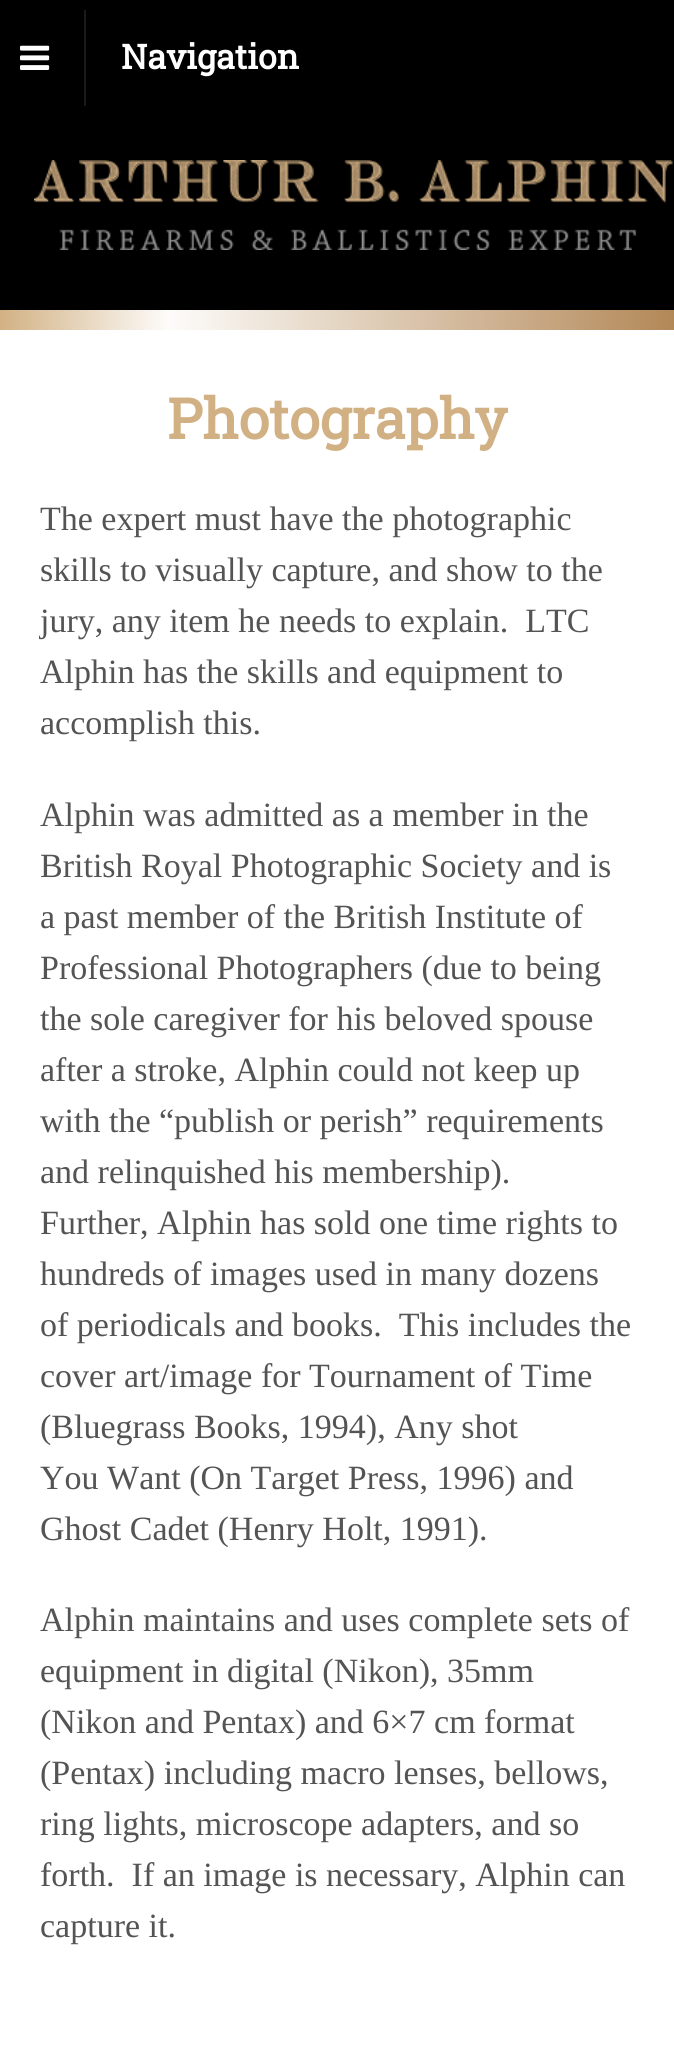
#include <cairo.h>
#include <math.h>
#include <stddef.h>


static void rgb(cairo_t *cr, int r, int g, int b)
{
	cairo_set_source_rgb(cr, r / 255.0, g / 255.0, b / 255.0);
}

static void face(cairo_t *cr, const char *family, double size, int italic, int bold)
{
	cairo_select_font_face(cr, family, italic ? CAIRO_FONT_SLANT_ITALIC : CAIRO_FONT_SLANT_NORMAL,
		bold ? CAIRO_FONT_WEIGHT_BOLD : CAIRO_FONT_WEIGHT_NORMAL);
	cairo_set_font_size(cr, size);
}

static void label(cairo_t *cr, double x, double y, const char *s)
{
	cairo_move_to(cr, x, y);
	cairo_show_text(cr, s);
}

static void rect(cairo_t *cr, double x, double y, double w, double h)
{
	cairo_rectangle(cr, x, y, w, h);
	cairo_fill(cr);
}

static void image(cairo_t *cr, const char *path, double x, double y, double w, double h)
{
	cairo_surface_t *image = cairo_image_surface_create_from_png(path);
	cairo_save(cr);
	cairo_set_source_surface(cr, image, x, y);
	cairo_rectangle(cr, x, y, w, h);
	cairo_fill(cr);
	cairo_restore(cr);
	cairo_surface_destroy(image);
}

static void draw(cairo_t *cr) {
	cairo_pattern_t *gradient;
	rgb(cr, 255, 255, 255);
	cairo_paint(cr);
	rgb(cr, 0, 0, 0);
	rect(cr, 0, 0, 674, 310);
	image(cr, "image0.png", 34, 160, 639, 90);
	gradient = cairo_pattern_create_linear(0, 320, 674, 320);
	cairo_pattern_add_color_stop_rgba(gradient, 0, 0.824, 0.694, 0.518, 1);
	cairo_pattern_add_color_stop_rgba(gradient, 0.25, 0.992, 0.988, 0.98, 1);
	cairo_pattern_add_color_stop_rgba(gradient, 1, 0.702, 0.533, 0.341, 1);
	cairo_set_source(cr, gradient);
	cairo_pattern_destroy(gradient);
	rect(cr, 0, 310, 674, 20);
	rgb(cr, 26, 26, 26);
	rect(cr, 84, 10, 2, 96);
	image(cr, "image1.png", 20, 45, 30, 25);
	face(cr, "Roboto Slab", 34, 0, 1);
	rgb(cr, 255, 255, 255);
	label(cr, 121, 69, "Navigation");
	face(cr, "Roboto Slab", 56, 0, 1);
	rgb(cr, 209, 176, 131);
	label(cr, 167, 439, "Photography");
	face(cr, "Liberation Serif", 34, 0, 0);
	rgb(cr, 84, 84, 84);
	label(cr, 40, 530, "The expert must have the photographic");
	label(cr, 40, 581, "skills to visually capture, and show to the");
	label(cr, 40, 632, "jury, any item he needs to explain.  LTC");
	label(cr, 40, 683, "Alphin has the skills and equipment to");
	label(cr, 40, 734, "accomplish this.");
	label(cr, 40, 826, "Alphin was admitted as a member in the");
	label(cr, 40, 877, "British Royal Photographic Society and is");
	label(cr, 40, 928, "a past member of the British Institute of");
	label(cr, 40, 979, "Professional Photographers (due to being");
	label(cr, 40, 1030, "the sole caregiver for his beloved spouse");
	label(cr, 40, 1081, "after a stroke, Alphin could not keep up");
	label(cr, 40, 1132, "with the “publish or perish” requirements");
	label(cr, 40, 1183, "and relinquished his membership).");
	label(cr, 40, 1234, "Further, Alphin has sold one time rights to");
	label(cr, 40, 1285, "hundreds of images used in many dozens");
	label(cr, 40, 1336, "of periodicals and books.  This includes the");
	label(cr, 40, 1387, "cover art/image for Tournament of Time");
	label(cr, 40, 1438, "(Bluegrass Books, 1994), Any shot");
	label(cr, 40, 1489, "You Want (On Target Press, 1996) and");
	label(cr, 40, 1540, "Ghost Cadet (Henry Holt, 1991).");
	label(cr, 40, 1631, "Alphin maintains and uses complete sets of");
	label(cr, 40, 1682, "equipment in digital (Nikon), 35mm");
	label(cr, 40, 1733, "(Nikon and Pentax) and 6×7 cm format");
	label(cr, 40, 1784, "(Pentax) including macro lenses, bellows,");
	label(cr, 40, 1835, "ring lights, microscope adapters, and so");
	label(cr, 40, 1886, "forth.  If an image is necessary, Alphin can");
	label(cr, 40, 1937, "capture it.");
}

int main(void) {
	cairo_surface_t *surface = cairo_image_surface_create(CAIRO_FORMAT_RGB24, 674, 2055);
	cairo_t *cr = cairo_create(surface);
	cairo_font_options_t *options = cairo_font_options_create();
	cairo_font_options_set_hint_metrics(options, CAIRO_HINT_METRICS_OFF);
	cairo_font_options_set_hint_style(options, CAIRO_HINT_STYLE_NONE);
	cairo_set_font_options(cr, options);
	cairo_set_miter_limit(cr, 4);
	draw(cr);
	cairo_surface_write_to_png(surface, "render.png");
	cairo_font_options_destroy(options);
	cairo_destroy(cr);
	cairo_surface_destroy(surface);
	return 0;
}
